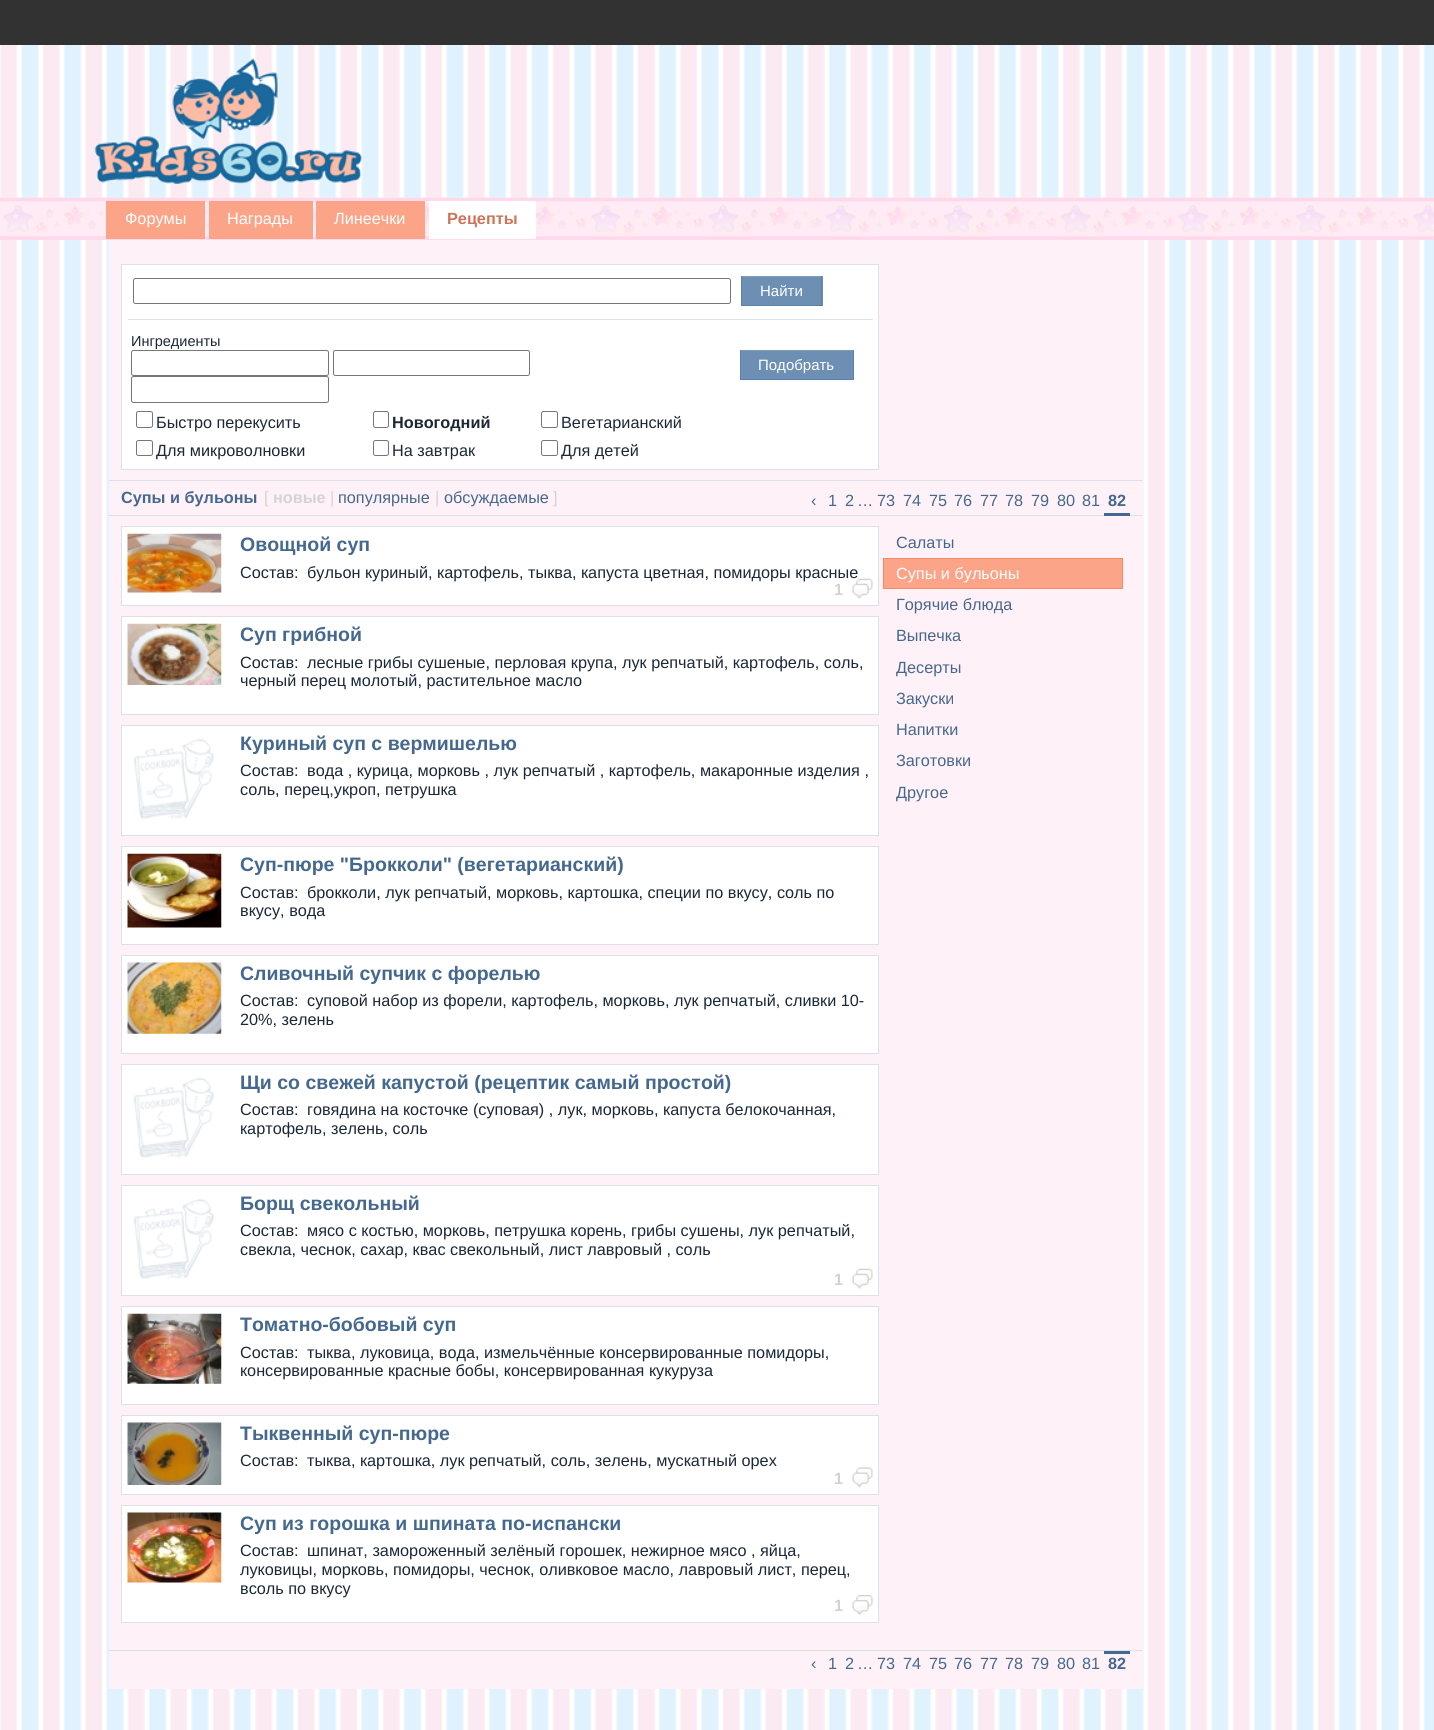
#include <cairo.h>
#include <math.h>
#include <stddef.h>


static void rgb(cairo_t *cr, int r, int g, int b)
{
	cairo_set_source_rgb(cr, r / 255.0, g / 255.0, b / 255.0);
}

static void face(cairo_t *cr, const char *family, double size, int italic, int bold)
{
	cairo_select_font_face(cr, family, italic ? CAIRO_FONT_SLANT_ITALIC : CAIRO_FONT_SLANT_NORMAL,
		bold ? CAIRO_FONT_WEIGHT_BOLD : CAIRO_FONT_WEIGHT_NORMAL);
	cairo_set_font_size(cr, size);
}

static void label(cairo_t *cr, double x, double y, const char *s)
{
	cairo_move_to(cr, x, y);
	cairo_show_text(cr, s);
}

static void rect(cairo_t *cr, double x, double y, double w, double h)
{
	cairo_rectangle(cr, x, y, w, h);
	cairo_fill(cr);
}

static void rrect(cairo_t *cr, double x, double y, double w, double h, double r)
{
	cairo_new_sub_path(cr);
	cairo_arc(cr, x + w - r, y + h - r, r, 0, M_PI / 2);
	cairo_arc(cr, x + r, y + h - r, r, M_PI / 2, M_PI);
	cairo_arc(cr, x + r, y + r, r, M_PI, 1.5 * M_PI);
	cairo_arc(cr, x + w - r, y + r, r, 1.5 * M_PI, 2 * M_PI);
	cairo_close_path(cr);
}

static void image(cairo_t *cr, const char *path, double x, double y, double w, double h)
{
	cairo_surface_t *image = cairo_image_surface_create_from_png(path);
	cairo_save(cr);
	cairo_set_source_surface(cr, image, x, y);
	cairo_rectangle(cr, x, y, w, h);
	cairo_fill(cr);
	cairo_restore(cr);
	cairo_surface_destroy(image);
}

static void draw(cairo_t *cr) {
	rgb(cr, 255, 255, 255);
	cairo_paint(cr);
	image(cr, "image0.png", 0, 45, 1434, 1685);
	rgb(cr, 50, 50, 50);
	rect(cr, 0, 0, 1434, 45);
	image(cr, "image1.png", 94, 58, 268, 126);
	image(cr, "image2.png", 0, 197, 1434, 43);
	rgb(cr, 252, 164, 135);
	rect(cr, 106, 201, 99, 38);
	face(cr, "Liberation Sans", 16.25, 0, 0);
	rgb(cr, 255, 255, 255);
	label(cr, 125, 224, "Форумы");
	rgb(cr, 252, 164, 135);
	rect(cr, 209, 201, 104, 38);
	rgb(cr, 255, 255, 255);
	label(cr, 227, 224, "Награды");
	rgb(cr, 252, 164, 135);
	rect(cr, 316, 201, 109, 38);
	rgb(cr, 255, 255, 255);
	label(cr, 334, 224, "Линеечки");
	rect(cr, 429, 201, 107, 38);
	face(cr, "Liberation Sans", 16.25, 0, 1);
	rgb(cr, 204, 116, 90);
	label(cr, 447, 224, "Рецепты");
	rgb(cr, 255, 241, 248);
	rect(cr, 109, 240, 1034, 1449);
	rgb(cr, 255, 255, 255);
	cairo_rectangle(cr, 121.5, 264.5, 757, 205);
	cairo_fill_preserve(cr);
	rgb(cr, 218, 226, 232);
	cairo_set_line_width(cr, 1);
	cairo_stroke(cr);
	rect(cr, 128, 319, 745, 1);
	rrect(cr, 133.5, 278.5, 597, 25, 2);
	rgb(cr, 118, 118, 118);
	cairo_stroke(cr);
	rgb(cr, 109, 143, 179);
	rect(cr, 742, 277, 81, 28);
	rgb(cr, 126, 156, 188);
	rect(cr, 741, 276, 82, 1);
	rgb(cr, 92, 130, 171);
	rect(cr, 821, 276, 1, 30);
	rect(cr, 741, 305, 82, 1);
	rect(cr, 741, 276, 1, 30);
	face(cr, "Liberation Sans", 15, 0, 0);
	rgb(cr, 255, 255, 255);
	label(cr, 760, 296, "Найти");
	face(cr, "Liberation Sans", 14.5, 0, 0);
	rgb(cr, 28, 40, 55);
	label(cr, 131, 346, "Ингредиенты");
	rrect(cr, 131.5, 350.5, 197, 25, 2);
	rgb(cr, 118, 118, 118);
	cairo_stroke(cr);
	rrect(cr, 333.5, 350.5, 196, 25, 2);
	cairo_stroke(cr);
	rrect(cr, 131.5, 376.5, 197, 26, 2);
	cairo_stroke(cr);
	rrect(cr, 136.5, 411.5, 16, 16, 2);
	cairo_stroke(cr);
	face(cr, "Liberation Sans", 16.25, 0, 0);
	rgb(cr, 28, 40, 55);
	label(cr, 156, 428, "Быстро перекусить");
	rrect(cr, 373.5, 411.5, 15, 16, 2);
	rgb(cr, 118, 118, 118);
	cairo_stroke(cr);
	face(cr, "Liberation Sans", 16.25, 0, 1);
	rgb(cr, 28, 40, 55);
	label(cr, 392, 428, "Новогодний");
	rrect(cr, 541.5, 411.5, 16, 16, 2);
	rgb(cr, 118, 118, 118);
	cairo_stroke(cr);
	face(cr, "Liberation Sans", 16.25, 0, 0);
	rgb(cr, 28, 40, 55);
	label(cr, 561, 428, "Вегетарианский");
	rrect(cr, 136.5, 440.5, 16, 15, 2);
	rgb(cr, 118, 118, 118);
	cairo_stroke(cr);
	rgb(cr, 28, 40, 55);
	label(cr, 156, 456, "Для микроволновки");
	rrect(cr, 373.5, 440.5, 15, 15, 2);
	rgb(cr, 118, 118, 118);
	cairo_stroke(cr);
	rgb(cr, 28, 40, 55);
	label(cr, 392, 456, "На завтрак");
	rrect(cr, 541.5, 440.5, 16, 15, 2);
	rgb(cr, 118, 118, 118);
	cairo_stroke(cr);
	rgb(cr, 28, 40, 55);
	label(cr, 561, 456, "Для детей");
	rgb(cr, 109, 143, 179);
	rect(cr, 741, 351, 112, 28);
	rgb(cr, 126, 156, 188);
	rect(cr, 740, 350, 114, 1);
	rgb(cr, 92, 130, 171);
	rect(cr, 853, 350, 1, 30);
	rect(cr, 740, 379, 114, 1);
	rect(cr, 740, 350, 1, 30);
	face(cr, "Liberation Sans", 15, 0, 0);
	rgb(cr, 255, 255, 255);
	label(cr, 758, 370, "Подобрать");
	rgb(cr, 218, 226, 232);
	rect(cr, 109, 480, 1034, 1);
	rect(cr, 109, 515, 1034, 1);
	face(cr, "Liberation Sans", 16.25, 0, 1);
	rgb(cr, 69, 104, 142);
	label(cr, 121, 503, "Супы и бульоны");
	face(cr, "Liberation Sans", 16.25, 0, 0);
	rgb(cr, 211, 211, 211);
	label(cr, 264, 503, "[");
	face(cr, "Liberation Sans", 16.25, 0, 1);
	label(cr, 273, 503, "новые");
	face(cr, "Liberation Sans", 16.25, 0, 0);
	label(cr, 330, 503, "|");
	rgb(cr, 69, 104, 142);
	label(cr, 338, 503, "популярные");
	rgb(cr, 211, 211, 211);
	label(cr, 435, 503, "|");
	rgb(cr, 69, 104, 142);
	label(cr, 444, 503, "обсуждаемые");
	rgb(cr, 211, 211, 211);
	label(cr, 553, 503, "]");
	rgb(cr, 69, 104, 142);
	label(cr, 811, 506, "‹");
	label(cr, 828, 506, "1");
	label(cr, 845, 506, "2");
	label(cr, 857, 506, "…");
	label(cr, 877, 506, "73");
	label(cr, 903, 506, "74");
	label(cr, 929, 506, "75");
	label(cr, 954, 506, "76");
	label(cr, 980, 506, "77");
	label(cr, 1005, 506, "78");
	label(cr, 1031, 506, "79");
	label(cr, 1057, 506, "80");
	label(cr, 1082, 506, "81");
	rect(cr, 1104, 513, 26, 3);
	face(cr, "Liberation Sans", 16.25, 0, 1);
	label(cr, 1108, 506, "82");
	rgb(cr, 255, 255, 255);
	cairo_rectangle(cr, 121.5, 526.5, 757, 79);
	cairo_fill_preserve(cr);
	rgb(cr, 218, 226, 232);
	cairo_stroke(cr);
	image(cr, "image3.png", 127, 533, 95, 60);
	face(cr, "Liberation Sans", 19.5, 0, 1);
	rgb(cr, 69, 104, 142);
	label(cr, 240, 551, "Овощной суп");
	face(cr, "Liberation Sans", 16.25, 0, 0);
	rgb(cr, 28, 40, 55);
	label(cr, 240, 578, "Cостав:");
	label(cr, 307, 578, "бульон куриный, картофель, тыква, капуста цветная, помидоры красные");
	face(cr, "Liberation Sans", 16.25, 0, 1);
	rgb(cr, 211, 211, 211);
	label(cr, 834, 595, "1");
	image(cr, "image4.png", 852, 578, 21, 21);
	rgb(cr, 255, 255, 255);
	cairo_rectangle(cr, 121.5, 616.5, 757, 98);
	cairo_fill_preserve(cr);
	rgb(cr, 218, 226, 232);
	cairo_stroke(cr);
	image(cr, "image5.png", 127, 623, 95, 62);
	face(cr, "Liberation Sans", 19.5, 0, 1);
	rgb(cr, 69, 104, 142);
	label(cr, 240, 641, "Суп грибной");
	face(cr, "Liberation Sans", 16.25, 0, 0);
	rgb(cr, 28, 40, 55);
	label(cr, 240, 668, "Cостав:");
	label(cr, 307, 668, "лесные грибы сушеные, перловая крупа, лук репчатый, картофель, соль,");
	label(cr, 240, 686, "черный перец молотый, растительное масло");
	rgb(cr, 255, 255, 255);
	cairo_rectangle(cr, 121.5, 725.5, 757, 110);
	cairo_fill_preserve(cr);
	rgb(cr, 218, 226, 232);
	cairo_stroke(cr);
	image(cr, "image6.png", 133, 738, 81, 81);
	face(cr, "Liberation Sans", 19.5, 0, 1);
	rgb(cr, 69, 104, 142);
	label(cr, 240, 750, "Куриный суп с вермишелью");
	face(cr, "Liberation Sans", 16.25, 0, 0);
	rgb(cr, 28, 40, 55);
	label(cr, 240, 776, "Cостав:");
	label(cr, 307, 776, "вода , курица, морковь , лук репчатый , картофель, макаронные изделия ,");
	label(cr, 240, 795, "соль, перец,укроп, петрушка");
	rgb(cr, 255, 255, 255);
	cairo_rectangle(cr, 121.5, 846.5, 757, 98);
	cairo_fill_preserve(cr);
	rgb(cr, 218, 226, 232);
	cairo_stroke(cr);
	image(cr, "image7.png", 127, 853, 95, 75);
	face(cr, "Liberation Sans", 19.5, 0, 1);
	rgb(cr, 69, 104, 142);
	label(cr, 240, 871, "Суп-пюре \"Брокколи\" (вегетарианский)");
	face(cr, "Liberation Sans", 16.25, 0, 0);
	rgb(cr, 28, 40, 55);
	label(cr, 240, 898, "Cостав:");
	label(cr, 307, 898, "брокколи, лук репчатый, морковь, картошка, специи по вкусу, соль по");
	label(cr, 240, 916, "вкусу, вода");
	rgb(cr, 255, 255, 255);
	cairo_rectangle(cr, 121.5, 955.5, 757, 98);
	cairo_fill_preserve(cr);
	rgb(cr, 218, 226, 232);
	cairo_stroke(cr);
	image(cr, "image8.png", 127, 962, 95, 72);
	face(cr, "Liberation Sans", 19.5, 0, 1);
	rgb(cr, 69, 104, 142);
	label(cr, 240, 980, "Сливочный супчик с форелью");
	face(cr, "Liberation Sans", 16.25, 0, 0);
	rgb(cr, 28, 40, 55);
	label(cr, 240, 1006, "Cостав:");
	label(cr, 307, 1006, "суповой набор из форели, картофель, морковь, лук репчатый, сливки 10-");
	label(cr, 240, 1025, "20%, зелень");
	rgb(cr, 255, 255, 255);
	cairo_rectangle(cr, 121.5, 1064.5, 757, 110);
	cairo_fill_preserve(cr);
	rgb(cr, 218, 226, 232);
	cairo_stroke(cr);
	image(cr, "image9.png", 133, 1077, 81, 81);
	face(cr, "Liberation Sans", 19.5, 0, 1);
	rgb(cr, 69, 104, 142);
	label(cr, 240, 1089, "Щи со свежей капустой (рецептик самый простой)");
	face(cr, "Liberation Sans", 16.25, 0, 0);
	rgb(cr, 28, 40, 55);
	label(cr, 240, 1115, "Cостав:");
	label(cr, 307, 1115, "говядина на косточке (суповая) , лук, морковь, капуста белокочанная,");
	label(cr, 240, 1134, "картофель, зелень, соль");
	rgb(cr, 255, 255, 255);
	cairo_rectangle(cr, 121.5, 1185.5, 757, 110);
	cairo_fill_preserve(cr);
	rgb(cr, 218, 226, 232);
	cairo_stroke(cr);
	image(cr, "image6.png", 133, 1198, 81, 81);
	face(cr, "Liberation Sans", 19.5, 0, 1);
	rgb(cr, 69, 104, 142);
	label(cr, 240, 1210, "Борщ свекольный");
	face(cr, "Liberation Sans", 16.25, 0, 0);
	rgb(cr, 28, 40, 55);
	label(cr, 240, 1236, "Cостав:");
	label(cr, 307, 1236, "мясо с костью, морковь, петрушка корень, грибы сушены, лук репчатый,");
	label(cr, 240, 1255, "свекла, чеснок, сахар, квас свекольный, лист лавровый , соль");
	face(cr, "Liberation Sans", 16.25, 0, 1);
	rgb(cr, 211, 211, 211);
	label(cr, 834, 1285, "1");
	image(cr, "image10.png", 852, 1268, 21, 21);
	rgb(cr, 255, 255, 255);
	cairo_rectangle(cr, 121.5, 1306.5, 757, 98);
	cairo_fill_preserve(cr);
	rgb(cr, 218, 226, 232);
	cairo_stroke(cr);
	image(cr, "image11.png", 127, 1313, 95, 71);
	face(cr, "Liberation Sans", 19.5, 0, 1);
	rgb(cr, 69, 104, 142);
	label(cr, 240, 1331, "Томатно-бобовый суп");
	face(cr, "Liberation Sans", 16.25, 0, 0);
	rgb(cr, 28, 40, 55);
	label(cr, 240, 1358, "Cостав:");
	label(cr, 307, 1358, "тыква, луковица, вода, измельчённые консервированные помидоры,");
	label(cr, 240, 1376, "консервированные красные бобы, консервированная кукуруза");
	rgb(cr, 255, 255, 255);
	cairo_rectangle(cr, 121.5, 1415.5, 757, 79);
	cairo_fill_preserve(cr);
	rgb(cr, 218, 226, 232);
	cairo_stroke(cr);
	image(cr, "image12.png", 127, 1422, 95, 63);
	face(cr, "Liberation Sans", 19.5, 0, 1);
	rgb(cr, 69, 104, 142);
	label(cr, 240, 1440, "Тыквенный суп-пюре");
	face(cr, "Liberation Sans", 16.25, 0, 0);
	rgb(cr, 28, 40, 55);
	label(cr, 240, 1466, "Cостав:");
	label(cr, 307, 1466, "тыква, картошка, лук репчатый, соль, зелень, мускатный орех");
	face(cr, "Liberation Sans", 16.25, 0, 1);
	rgb(cr, 211, 211, 211);
	label(cr, 834, 1484, "1");
	image(cr, "image13.png", 852, 1467, 21, 21);
	rgb(cr, 255, 255, 255);
	cairo_rectangle(cr, 121.5, 1505.5, 757, 117);
	cairo_fill_preserve(cr);
	rgb(cr, 218, 226, 232);
	cairo_stroke(cr);
	image(cr, "image14.png", 127, 1512, 95, 71);
	face(cr, "Liberation Sans", 19.5, 0, 1);
	rgb(cr, 69, 104, 142);
	label(cr, 240, 1530, "Суп из горошка и шпината по-испански");
	face(cr, "Liberation Sans", 16.25, 0, 0);
	rgb(cr, 28, 40, 55);
	label(cr, 240, 1556, "Cостав:");
	label(cr, 307, 1556, "шпинат, замороженный зелёный горошек, нежирное мясо , яйца,");
	label(cr, 240, 1575, "луковицы, морковь, помидоры, чеснок, оливковое масло, лавровый лист, перец,");
	label(cr, 240, 1594, "всоль по вкусу");
	face(cr, "Liberation Sans", 16.25, 0, 1);
	rgb(cr, 211, 211, 211);
	label(cr, 834, 1611, "1");
	image(cr, "image15.png", 852, 1595, 21, 20);
	face(cr, "Liberation Sans", 16.25, 0, 0);
	rgb(cr, 69, 104, 142);
	label(cr, 896, 548, "Салаты");
	rgb(cr, 252, 164, 135);
	cairo_rectangle(cr, 883.5, 558.5, 239, 30);
	cairo_fill_preserve(cr);
	rgb(cr, 249, 137, 101);
	cairo_stroke(cr);
	rgb(cr, 255, 255, 255);
	label(cr, 896, 579, "Супы и бульоны");
	rgb(cr, 69, 104, 142);
	label(cr, 896, 610, "Горячие блюда");
	label(cr, 896, 641, "Выпечка");
	label(cr, 896, 673, "Десерты");
	label(cr, 896, 704, "Закуски");
	label(cr, 896, 735, "Напитки");
	label(cr, 896, 766, "Заготовки");
	label(cr, 896, 798, "Другое");
	rgb(cr, 218, 226, 232);
	rect(cr, 109, 1650, 1034, 1);
	rgb(cr, 69, 104, 142);
	label(cr, 811, 1669, "‹");
	label(cr, 828, 1669, "1");
	label(cr, 845, 1669, "2");
	label(cr, 857, 1669, "…");
	label(cr, 877, 1669, "73");
	label(cr, 903, 1669, "74");
	label(cr, 929, 1669, "75");
	label(cr, 954, 1669, "76");
	label(cr, 980, 1669, "77");
	label(cr, 1005, 1669, "78");
	label(cr, 1031, 1669, "79");
	label(cr, 1057, 1669, "80");
	label(cr, 1082, 1669, "81");
	rect(cr, 1104, 1651, 26, 3);
	face(cr, "Liberation Sans", 16.25, 0, 1);
	label(cr, 1108, 1669, "82");
}

int main(void) {
	cairo_surface_t *surface = cairo_image_surface_create(CAIRO_FORMAT_RGB24, 1434, 1730);
	cairo_t *cr = cairo_create(surface);
	cairo_font_options_t *options = cairo_font_options_create();
	cairo_font_options_set_hint_metrics(options, CAIRO_HINT_METRICS_OFF);
	cairo_font_options_set_hint_style(options, CAIRO_HINT_STYLE_NONE);
	cairo_set_font_options(cr, options);
	cairo_set_miter_limit(cr, 4);
	draw(cr);
	cairo_surface_write_to_png(surface, "render.png");
	cairo_font_options_destroy(options);
	cairo_destroy(cr);
	cairo_surface_destroy(surface);
	return 0;
}
